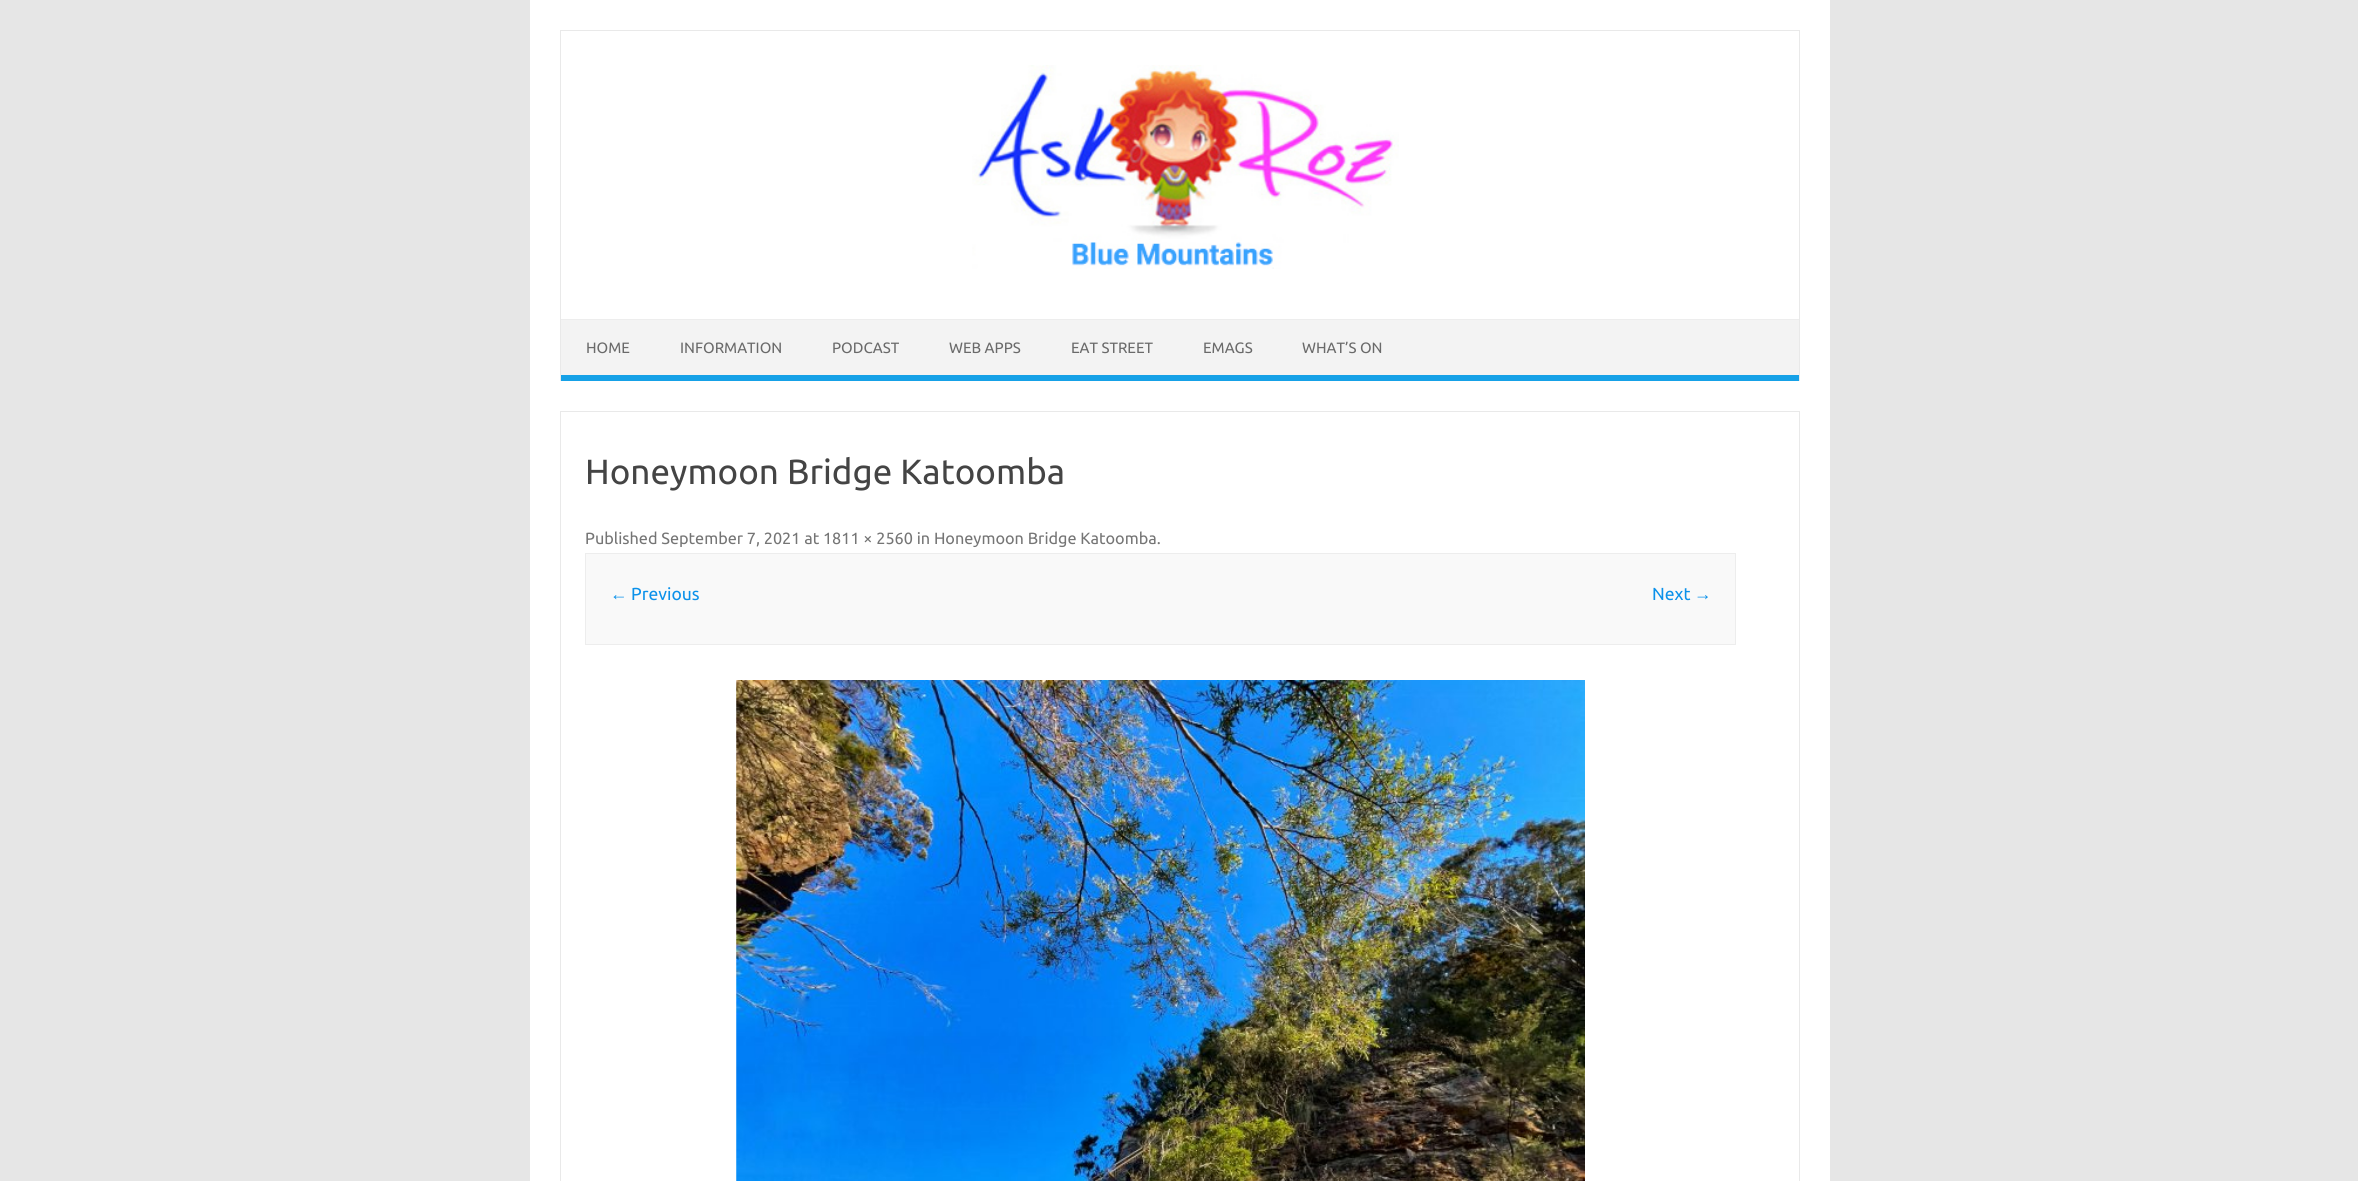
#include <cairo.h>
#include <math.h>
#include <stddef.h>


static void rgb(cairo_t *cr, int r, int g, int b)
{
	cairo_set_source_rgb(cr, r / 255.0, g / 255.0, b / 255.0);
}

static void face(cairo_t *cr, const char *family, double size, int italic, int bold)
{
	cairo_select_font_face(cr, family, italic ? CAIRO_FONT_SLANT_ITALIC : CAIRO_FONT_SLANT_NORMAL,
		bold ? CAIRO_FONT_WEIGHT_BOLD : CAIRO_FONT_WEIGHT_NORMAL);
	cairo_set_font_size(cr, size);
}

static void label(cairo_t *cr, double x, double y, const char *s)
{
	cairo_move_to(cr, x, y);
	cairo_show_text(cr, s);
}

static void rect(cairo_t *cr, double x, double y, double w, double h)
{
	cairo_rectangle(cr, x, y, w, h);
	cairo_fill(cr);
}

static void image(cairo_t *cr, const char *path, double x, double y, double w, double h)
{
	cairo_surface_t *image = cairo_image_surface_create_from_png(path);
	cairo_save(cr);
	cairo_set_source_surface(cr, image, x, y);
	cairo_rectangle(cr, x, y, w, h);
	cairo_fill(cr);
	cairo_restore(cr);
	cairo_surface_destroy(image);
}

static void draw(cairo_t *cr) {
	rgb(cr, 230, 230, 230);
	cairo_paint(cr);
	rgb(cr, 255, 255, 255);
	rect(cr, 530, 0, 1300, 1181);
	rgb(cr, 233, 233, 233);
	rect(cr, 560, 30, 1240, 1);
	rect(cr, 1799, 30, 1, 351);
	rect(cr, 560, 30, 1, 351);
	image(cr, "image0.png", 972, 65, 427, 204);
	rgb(cr, 243, 243, 243);
	rect(cr, 561, 320, 1238, 55);
	rgb(cr, 237, 237, 237);
	rect(cr, 561, 319, 1238, 1);
	rgb(cr, 22, 161, 231);
	rect(cr, 561, 375, 1238, 6);
	face(cr, "Ubuntu", 15, 0, 0);
	rgb(cr, 106, 106, 106);
	label(cr, 586, 353, "HOME");
	label(cr, 680, 353, "INFORMATION");
	label(cr, 832, 353, "PODCAST");
	label(cr, 949, 353, "WEB APPS");
	label(cr, 1071, 353, "EAT STREET");
	label(cr, 1203, 353, "EMAGS");
	label(cr, 1302, 353, "WHAT’S ON");
	cairo_rectangle(cr, 560.5, 411.5, 1239, 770);
	rgb(cr, 233, 233, 233);
	cairo_set_line_width(cr, 1);
	cairo_stroke(cr);
	face(cr, "Ubuntu", 35, 0, 0);
	rgb(cr, 68, 68, 68);
	label(cr, 585, 484, "Honeymoon Bridge Katoomba");
	face(cr, "Ubuntu", 16.25, 0, 0);
	rgb(cr, 117, 117, 117);
	label(cr, 585, 544, "Published September 7, 2021 at 1811 × 2560 in Honeymoon Bridge Katoomba.");
	rgb(cr, 249, 249, 249);
	cairo_rectangle(cr, 585.5, 553.5, 1150, 91);
	cairo_fill_preserve(cr);
	rgb(cr, 237, 237, 237);
	cairo_stroke(cr);
	face(cr, "Liberation Sans", 17.5, 0, 0);
	rgb(cr, 11, 145, 234);
	label(cr, 610, 600, "←");
	face(cr, "Ubuntu", 17.5, 0, 0);
	label(cr, 631, 600, "Previous");
	label(cr, 1652, 600, "Next");
	face(cr, "Liberation Sans", 17.5, 0, 0);
	label(cr, 1694, 600, "→");
	image(cr, "image1.png", 736, 680, 849, 501);
}

int main(void) {
	cairo_surface_t *surface = cairo_image_surface_create(CAIRO_FORMAT_RGB24, 2358, 1181);
	cairo_t *cr = cairo_create(surface);
	cairo_font_options_t *options = cairo_font_options_create();
	cairo_font_options_set_hint_metrics(options, CAIRO_HINT_METRICS_OFF);
	cairo_font_options_set_hint_style(options, CAIRO_HINT_STYLE_NONE);
	cairo_set_font_options(cr, options);
	cairo_set_miter_limit(cr, 4);
	draw(cr);
	cairo_surface_write_to_png(surface, "render.png");
	cairo_font_options_destroy(options);
	cairo_destroy(cr);
	cairo_surface_destroy(surface);
	return 0;
}
